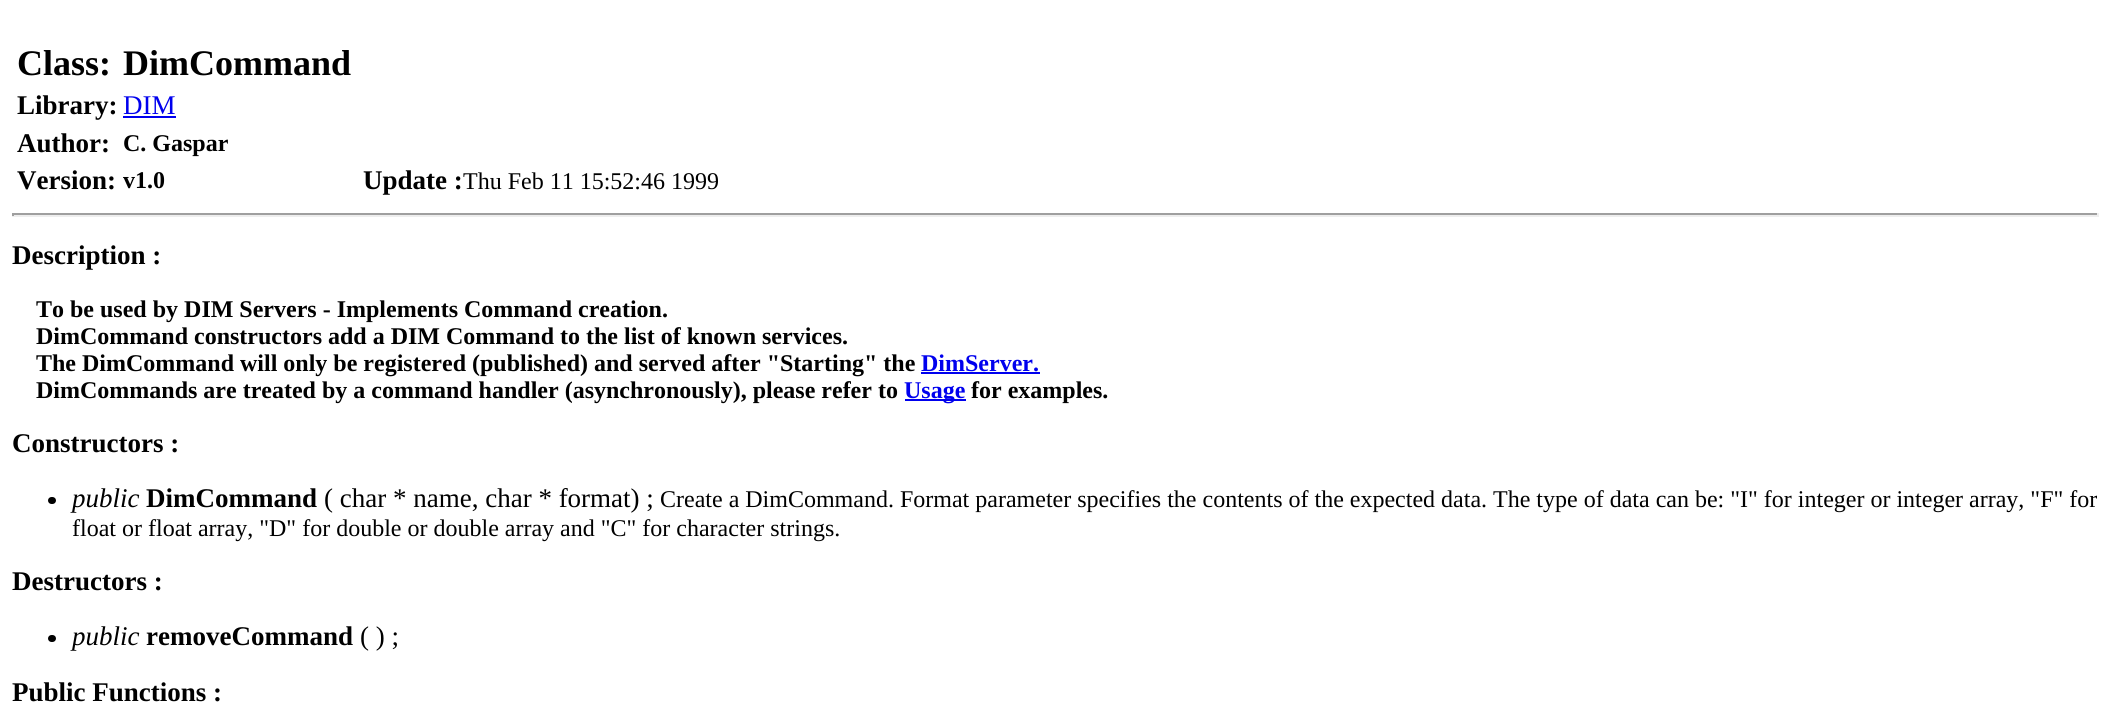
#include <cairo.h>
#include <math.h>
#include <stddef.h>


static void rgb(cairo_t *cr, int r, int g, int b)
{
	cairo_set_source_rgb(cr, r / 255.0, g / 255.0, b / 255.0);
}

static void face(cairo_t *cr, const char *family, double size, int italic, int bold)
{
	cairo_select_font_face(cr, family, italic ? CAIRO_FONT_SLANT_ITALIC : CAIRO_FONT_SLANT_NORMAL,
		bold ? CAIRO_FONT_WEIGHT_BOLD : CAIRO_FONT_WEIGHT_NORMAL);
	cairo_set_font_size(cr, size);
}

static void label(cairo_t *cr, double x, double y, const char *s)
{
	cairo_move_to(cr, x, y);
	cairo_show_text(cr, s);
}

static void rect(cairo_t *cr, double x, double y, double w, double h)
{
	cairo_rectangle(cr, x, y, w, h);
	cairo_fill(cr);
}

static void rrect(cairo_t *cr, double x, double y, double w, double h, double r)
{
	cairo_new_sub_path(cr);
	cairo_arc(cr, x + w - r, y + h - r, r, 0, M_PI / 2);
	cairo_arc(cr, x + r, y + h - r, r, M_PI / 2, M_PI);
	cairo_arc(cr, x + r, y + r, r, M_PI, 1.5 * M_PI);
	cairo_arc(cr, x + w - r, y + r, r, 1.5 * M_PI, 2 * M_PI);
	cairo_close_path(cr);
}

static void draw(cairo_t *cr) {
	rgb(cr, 255, 255, 255);
	cairo_paint(cr);
	face(cr, "Liberation Serif", 36, 0, 1);
	rgb(cr, 0, 0, 0);
	label(cr, 17, 75, "Class:");
	label(cr, 123, 75, "DimCommand");
	face(cr, "Liberation Serif", 27, 0, 1);
	label(cr, 17, 114, "Library:");
	face(cr, "Liberation Serif", 27, 0, 0);
	rgb(cr, 0, 0, 238);
	label(cr, 123, 114, "DIM");
	rect(cr, 123, 116, 53, 2);
	face(cr, "Liberation Serif", 27, 0, 1);
	rgb(cr, 0, 0, 0);
	label(cr, 17, 152, "Author:");
	face(cr, "Liberation Serif", 24, 0, 1);
	label(cr, 123, 151, "C. Gaspar");
	face(cr, "Liberation Serif", 27, 0, 1);
	label(cr, 17, 189, "Version:");
	face(cr, "Liberation Serif", 24, 0, 1);
	label(cr, 123, 188, "v1.0");
	face(cr, "Liberation Serif", 27, 0, 1);
	label(cr, 363, 189, "Update :");
	face(cr, "Liberation Serif", 24, 0, 0);
	label(cr, 463, 189, "Thu Feb 11 15:52:46 1999");
	rgb(cr, 159, 159, 159);
	rect(cr, 12, 213, 2087, 2);
	rgb(cr, 238, 238, 238);
	rect(cr, 2097, 213, 2, 3);
	rect(cr, 12, 215, 2087, 2);
	rgb(cr, 159, 159, 159);
	rect(cr, 12, 213, 2, 3);
	face(cr, "Liberation Serif", 27, 0, 1);
	rgb(cr, 0, 0, 0);
	label(cr, 12, 264, "Description :");
	face(cr, "Liberation Serif", 24, 0, 1);
	label(cr, 36, 317, "To be used by DIM Servers - Implements Command creation.");
	label(cr, 36, 344, "DimCommand constructors add a DIM Command to the list of known services.");
	label(cr, 36, 371, "The DimCommand will only be registered (published) and served after \"Starting\" the");
	rgb(cr, 0, 0, 238);
	label(cr, 921, 371, "DimServer.");
	rect(cr, 921, 372, 119, 2);
	rgb(cr, 0, 0, 0);
	label(cr, 36, 398, "DimCommands are treated by a command handler (asynchronously), please refer to");
	rgb(cr, 0, 0, 238);
	rect(cr, 905, 399, 61, 2);
	label(cr, 904, 398, "Usage");
	rgb(cr, 0, 0, 0);
	label(cr, 971, 398, "for examples.");
	face(cr, "Liberation Serif", 27, 0, 1);
	label(cr, 12, 452, "Constructors :");
	rrect(cr, 48, 497, 8, 7, 3.5);
	cairo_fill(cr);
	face(cr, "Liberation Serif", 27, 1, 0);
	label(cr, 72, 507, "public");
	face(cr, "Liberation Serif", 27, 0, 1);
	label(cr, 146, 507, "DimCommand");
	face(cr, "Liberation Serif", 27, 0, 0);
	label(cr, 324, 507, "( char * name, char * format) ;");
	face(cr, "Liberation Serif", 24, 0, 0);
	label(cr, 660, 507, "Create a DimCommand. Format parameter specifies the contents of the expected data. The type of data can be: \"I\" for integer or integer array, \"F\" for");
	label(cr, 72, 536, "float or float array, \"D\" for double or double array and \"C\" for character strings.");
	face(cr, "Liberation Serif", 27, 0, 1);
	label(cr, 12, 590, "Destructors :");
	rrect(cr, 48, 635, 8, 7, 3.5);
	cairo_fill(cr);
	face(cr, "Liberation Serif", 27, 1, 0);
	label(cr, 72, 645, "public");
	face(cr, "Liberation Serif", 27, 0, 1);
	label(cr, 146, 645, "removeCommand");
	face(cr, "Liberation Serif", 27, 0, 0);
	label(cr, 360, 645, "( ) ;");
	face(cr, "Liberation Serif", 27, 0, 1);
	label(cr, 12, 701, "Public Functions :");
}

int main(void) {
	cairo_surface_t *surface = cairo_image_surface_create(CAIRO_FORMAT_RGB24, 2110, 725);
	cairo_t *cr = cairo_create(surface);
	cairo_font_options_t *options = cairo_font_options_create();
	cairo_font_options_set_hint_metrics(options, CAIRO_HINT_METRICS_OFF);
	cairo_font_options_set_hint_style(options, CAIRO_HINT_STYLE_NONE);
	cairo_set_font_options(cr, options);
	cairo_set_miter_limit(cr, 4);
	draw(cr);
	cairo_surface_write_to_png(surface, "render.png");
	cairo_font_options_destroy(options);
	cairo_destroy(cr);
	cairo_surface_destroy(surface);
	return 0;
}
